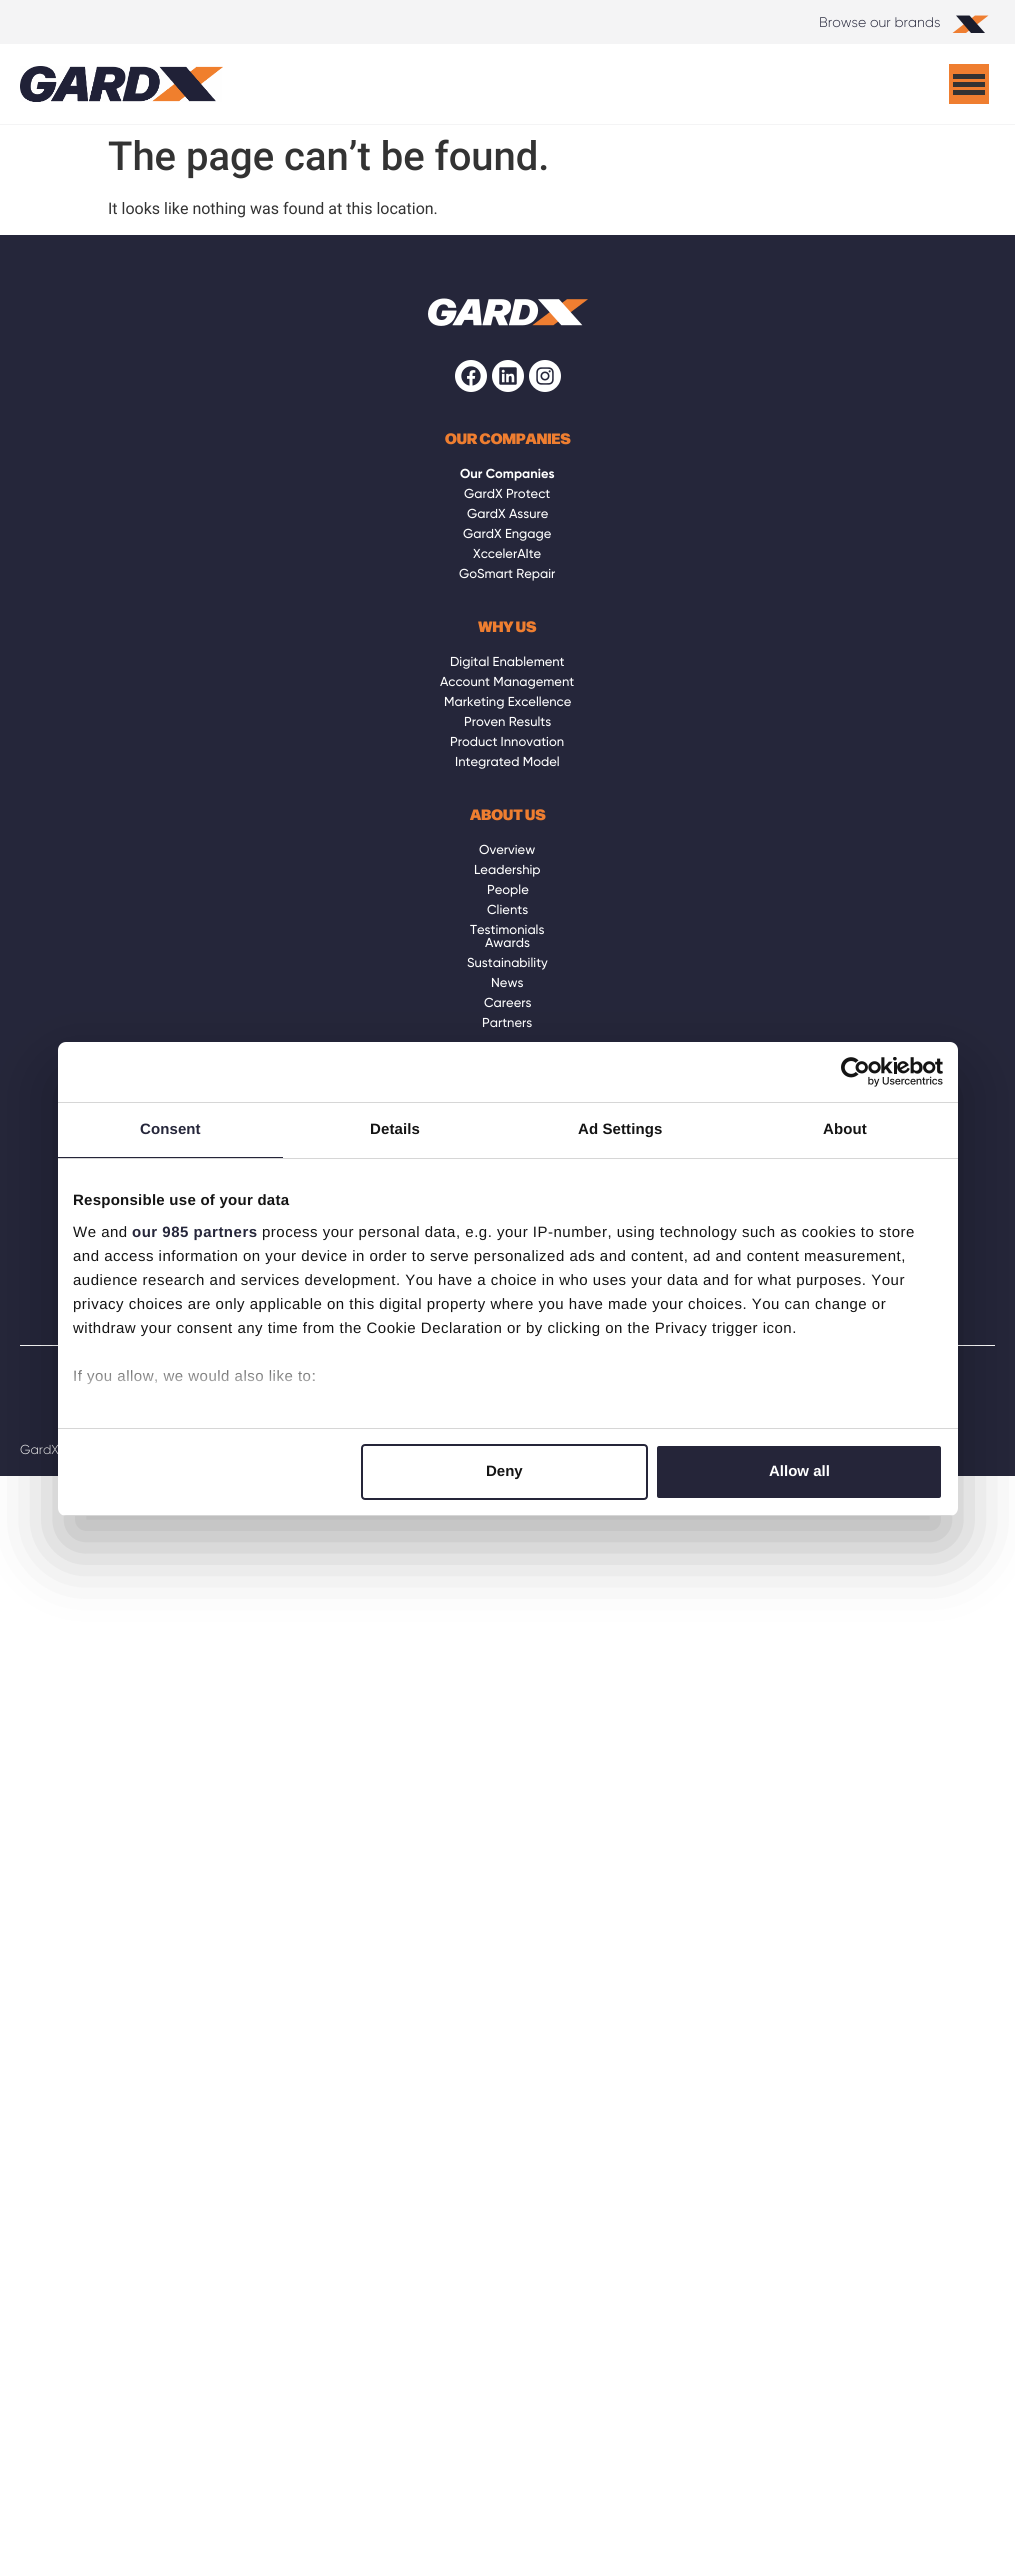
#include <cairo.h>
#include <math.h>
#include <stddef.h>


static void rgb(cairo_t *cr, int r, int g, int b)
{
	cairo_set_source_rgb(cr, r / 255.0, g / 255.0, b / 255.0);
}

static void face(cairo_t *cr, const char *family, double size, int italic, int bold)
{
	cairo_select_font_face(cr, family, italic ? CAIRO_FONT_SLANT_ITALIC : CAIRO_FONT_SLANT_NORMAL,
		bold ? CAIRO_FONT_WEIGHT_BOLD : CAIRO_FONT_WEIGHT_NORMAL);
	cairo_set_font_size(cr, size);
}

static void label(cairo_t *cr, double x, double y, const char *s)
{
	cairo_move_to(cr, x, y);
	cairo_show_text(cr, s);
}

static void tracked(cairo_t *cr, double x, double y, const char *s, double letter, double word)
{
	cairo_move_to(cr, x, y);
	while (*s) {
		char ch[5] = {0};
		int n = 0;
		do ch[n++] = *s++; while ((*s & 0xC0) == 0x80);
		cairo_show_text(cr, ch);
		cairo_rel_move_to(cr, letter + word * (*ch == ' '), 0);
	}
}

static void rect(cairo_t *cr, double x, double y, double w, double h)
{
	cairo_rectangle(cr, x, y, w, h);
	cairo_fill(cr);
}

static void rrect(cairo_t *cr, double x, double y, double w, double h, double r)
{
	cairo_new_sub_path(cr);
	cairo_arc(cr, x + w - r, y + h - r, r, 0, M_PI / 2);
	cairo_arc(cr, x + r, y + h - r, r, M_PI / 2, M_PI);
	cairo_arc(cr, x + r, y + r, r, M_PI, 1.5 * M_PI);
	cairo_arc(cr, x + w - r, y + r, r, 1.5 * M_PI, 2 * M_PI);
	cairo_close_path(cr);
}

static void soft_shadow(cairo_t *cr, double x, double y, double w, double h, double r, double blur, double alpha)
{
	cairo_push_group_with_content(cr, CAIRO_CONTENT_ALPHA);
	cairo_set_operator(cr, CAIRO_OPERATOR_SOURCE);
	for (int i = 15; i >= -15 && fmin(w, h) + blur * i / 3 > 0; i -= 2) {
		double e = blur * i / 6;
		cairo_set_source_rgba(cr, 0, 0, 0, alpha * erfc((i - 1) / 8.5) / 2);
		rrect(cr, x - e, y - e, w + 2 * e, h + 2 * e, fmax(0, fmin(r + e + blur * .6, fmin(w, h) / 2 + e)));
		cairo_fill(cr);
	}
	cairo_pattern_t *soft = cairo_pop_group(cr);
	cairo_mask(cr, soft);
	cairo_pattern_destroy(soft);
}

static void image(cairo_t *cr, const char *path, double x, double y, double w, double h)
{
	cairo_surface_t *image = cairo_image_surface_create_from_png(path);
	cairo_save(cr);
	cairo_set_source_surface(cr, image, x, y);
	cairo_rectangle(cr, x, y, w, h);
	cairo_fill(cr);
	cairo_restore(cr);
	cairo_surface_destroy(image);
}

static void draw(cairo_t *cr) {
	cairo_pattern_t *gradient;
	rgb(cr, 255, 255, 255);
	cairo_paint(cr);
	rgb(cr, 244, 244, 245);
	rect(cr, 0, 124, 1015, 1);
	rect(cr, 0, 0, 1015, 44);
	face(cr, "Gilroy Light", 14, 0, 0);
	rgb(cr, 37, 38, 58);
	label(cr, 819, 27, "Browse our brands");
	rgb(cr, 239, 126, 49);
	cairo_new_path(cr);
	cairo_move_to(cr, 966, 33);
	cairo_line_to(cr, 988.5, 15.5);
	cairo_line_to(cr, 975, 15.5);
	cairo_line_to(cr, 952.5, 33);
	cairo_close_path(cr);
	cairo_fill(cr);
	rgb(cr, 26, 28, 44);
	cairo_new_path(cr);
	cairo_move_to(cr, 971, 33);
	cairo_line_to(cr, 956, 15.5);
	cairo_line_to(cr, 969.5, 15.5);
	cairo_line_to(cr, 985, 33);
	cairo_close_path(cr);
	cairo_fill(cr);
	image(cr, "image0.png", 20, 66, 203, 36);
	rgb(cr, 239, 126, 48);
	rect(cr, 949, 64, 40, 40);
	rgb(cr, 51, 51, 51);
	rect(cr, 953, 74, 32, 5);
	rect(cr, 953, 82, 32, 5);
	rect(cr, 953, 90, 32, 5);
	face(cr, "Roboto Medium", 40, 0, 0);
	label(cr, 108, 170, "The page can’t be found.");
	face(cr, "Roboto", 16, 0, 0);
	label(cr, 108, 214, "It looks like nothing was found at this location.");
	rgb(cr, 37, 38, 58);
	rect(cr, 0, 235, 1015, 1241);
	image(cr, "image1.png", 428, 298, 160, 28);
	rgb(cr, 255, 255, 255);
	cairo_arc(cr, 471, 376, 16, 0, 2 * M_PI);
	cairo_fill(cr);
	image(cr, "image2.png", 461, 366, 20, 20);
	cairo_arc(cr, 508, 376, 16, 0, 2 * M_PI);
	cairo_fill(cr);
	image(cr, "image3.png", 499, 367, 18, 18);
	cairo_arc(cr, 545, 376, 16, 0, 2 * M_PI);
	cairo_fill(cr);
	image(cr, "image4.png", 536, 367, 18, 18);
	face(cr, "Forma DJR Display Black", 15, 0, 0);
	rgb(cr, 239, 126, 48);
	label(cr, 445, 444, "OUR COMPANIES");
	face(cr, "Gilroy", 13, 0, 1);
	rgb(cr, 255, 255, 255);
	label(cr, 460, 478, "Our Companies");
	face(cr, "Gilroy Medium", 13, 0, 0);
	label(cr, 464, 498, "GardX Protect");
	label(cr, 467, 518, "GardX Assure");
	label(cr, 463, 538, "GardX Engage");
	label(cr, 473, 558, "XccelerAIte");
	label(cr, 459, 578, "GoSmart Repair");
	face(cr, "Forma DJR Display Black", 15, 0, 0);
	rgb(cr, 239, 126, 48);
	label(cr, 478, 632, "WHY US");
	face(cr, "Gilroy Medium", 13, 0, 0);
	rgb(cr, 255, 255, 255);
	label(cr, 450, 666, "Digital Enablement");
	label(cr, 440, 686, "Account Management");
	label(cr, 444, 706, "Marketing Excellence");
	label(cr, 464, 726, "Proven Results");
	label(cr, 450, 746, "Product Innovation");
	label(cr, 455, 766, "Integrated Model");
	face(cr, "Forma DJR Display Black", 15, 0, 0);
	rgb(cr, 239, 126, 48);
	label(cr, 470, 820, "ABOUT US");
	face(cr, "Gilroy Medium", 13, 0, 0);
	rgb(cr, 255, 255, 255);
	label(cr, 479, 854, "Overview");
	label(cr, 474, 874, "Leadership");
	label(cr, 487, 894, "People");
	label(cr, 487, 914, "Clients");
	label(cr, 470, 934, "Testimonials");
	label(cr, 485, 947, "Awards");
	label(cr, 467, 967, "Sustainability");
	label(cr, 491, 987, "News");
	label(cr, 484, 1007, "Careers");
	label(cr, 482, 1027, "Partners");
	rect(cr, 20, 1345, 975, 1);
	face(cr, "Gilroy Light", 13, 0, 0);
	label(cr, 20, 1454, "GardX");
	rgb(cr, 0, 0, 0);
	soft_shadow(cr, 58, 1074, 900, 474, 8, 34, 0.3);
	rgb(cr, 255, 255, 255);
	rrect(cr, 58, 1042, 900, 474, 8);
	cairo_fill(cr);
	rgb(cr, 214, 214, 214);
	rect(cr, 58, 1102, 900, 1);
	image(cr, "image5.png", 841, 1057, 102, 30);
	rect(cr, 58, 1158, 900, 1);
	rgb(cr, 37, 37, 57);
	rect(cr, 58, 1157, 225, 1);
	face(cr, "Liberation Sans", 15, 0, 1);
	rgb(cr, 37, 38, 58);
	tracked(cr, 140, 1134, "Consent", 0.1, 0);
	rgb(cr, 20, 20, 20);
	tracked(cr, 370, 1134, "Details", 0.1, 0);
	tracked(cr, 578, 1134, "Ad Settings", 0.1, 0);
	tracked(cr, 823, 1134, "About", 0.1, 0);
	rgb(cr, 214, 214, 214);
	rect(cr, 58, 1428, 900, 1);
	rgb(cr, 20, 20, 20);
	tracked(cr, 73, 1205, "Responsible use of your data", 0.25, 0);
	face(cr, "Liberation Sans", 15, 0, 0);
	tracked(cr, 73, 1237, "We and", 0.5, 0);
	face(cr, "Liberation Sans", 15, 0, 1);
	rgb(cr, 37, 38, 58);
	tracked(cr, 132, 1237, "our 985 partners", 0.5, 0);
	face(cr, "Liberation Sans", 15, 0, 0);
	rgb(cr, 20, 20, 20);
	tracked(cr, 262, 1237, "process your personal data, e.g. your IP-number, using technology such as cookies to store", 0.5, 0);
	tracked(cr, 73, 1261, "and access information on your device in order to serve personalized ads and content, ad and content measurement,", 0.5, 0);
	tracked(cr, 73, 1285, "audience research and services development. You have a choice in who uses your data and for what purposes. Your", 0.5, 0);
	tracked(cr, 73, 1309, "privacy choices are only applicable on this digital property where you have made your choices. You can change or", 0.5, 0);
	tracked(cr, 73, 1333, "withdraw your consent any time from the Cookie Declaration or by clicking on the Privacy trigger icon.", 0.5, 0);
	tracked(cr, 73, 1381, "If you allow, we would also like to:", 0.5, 0);
	gradient = cairo_pattern_create_linear(502, 1428, 502, 1353);
	cairo_pattern_add_color_stop_rgba(gradient, 0, 1, 1, 1, 1);
	cairo_pattern_add_color_stop_rgba(gradient, 0.5, 1, 1, 1, 0.8);
	cairo_pattern_add_color_stop_rgba(gradient, 1, 1, 1, 1, 0);
	cairo_set_source(cr, gradient);
	cairo_pattern_destroy(gradient);
	rect(cr, 73, 1370, 241, 15);
	cairo_save(cr);
	rrect(cr, 58, 1042, 900, 474, 8);
	cairo_clip(cr);
	rgb(cr, 214, 214, 214);
	rect(cr, 58, 1515, 900, 1);
	cairo_restore(cr);
	rrect(cr, 362, 1445, 285, 54, 3);
	rgb(cr, 37, 37, 57);
	cairo_stroke(cr);
	face(cr, "Liberation Sans", 15, 0, 1);
	rgb(cr, 20, 20, 20);
	label(cr, 486, 1476, "Deny");
	rgb(cr, 37, 37, 57);
	rrect(cr, 656, 1445, 286, 54, 3);
	cairo_fill_preserve(cr);
	rgb(cr, 255, 255, 255);
	cairo_stroke(cr);
	label(cr, 769, 1476, "Allow all");
}

int main(void) {
	cairo_surface_t *surface = cairo_image_surface_create(CAIRO_FORMAT_RGB24, 1015, 2557);
	cairo_t *cr = cairo_create(surface);
	cairo_font_options_t *options = cairo_font_options_create();
	cairo_font_options_set_hint_metrics(options, CAIRO_HINT_METRICS_OFF);
	cairo_font_options_set_hint_style(options, CAIRO_HINT_STYLE_NONE);
	cairo_set_font_options(cr, options);
	cairo_set_miter_limit(cr, 4);
	draw(cr);
	cairo_surface_write_to_png(surface, "render.png");
	cairo_font_options_destroy(options);
	cairo_destroy(cr);
	cairo_surface_destroy(surface);
	return 0;
}
